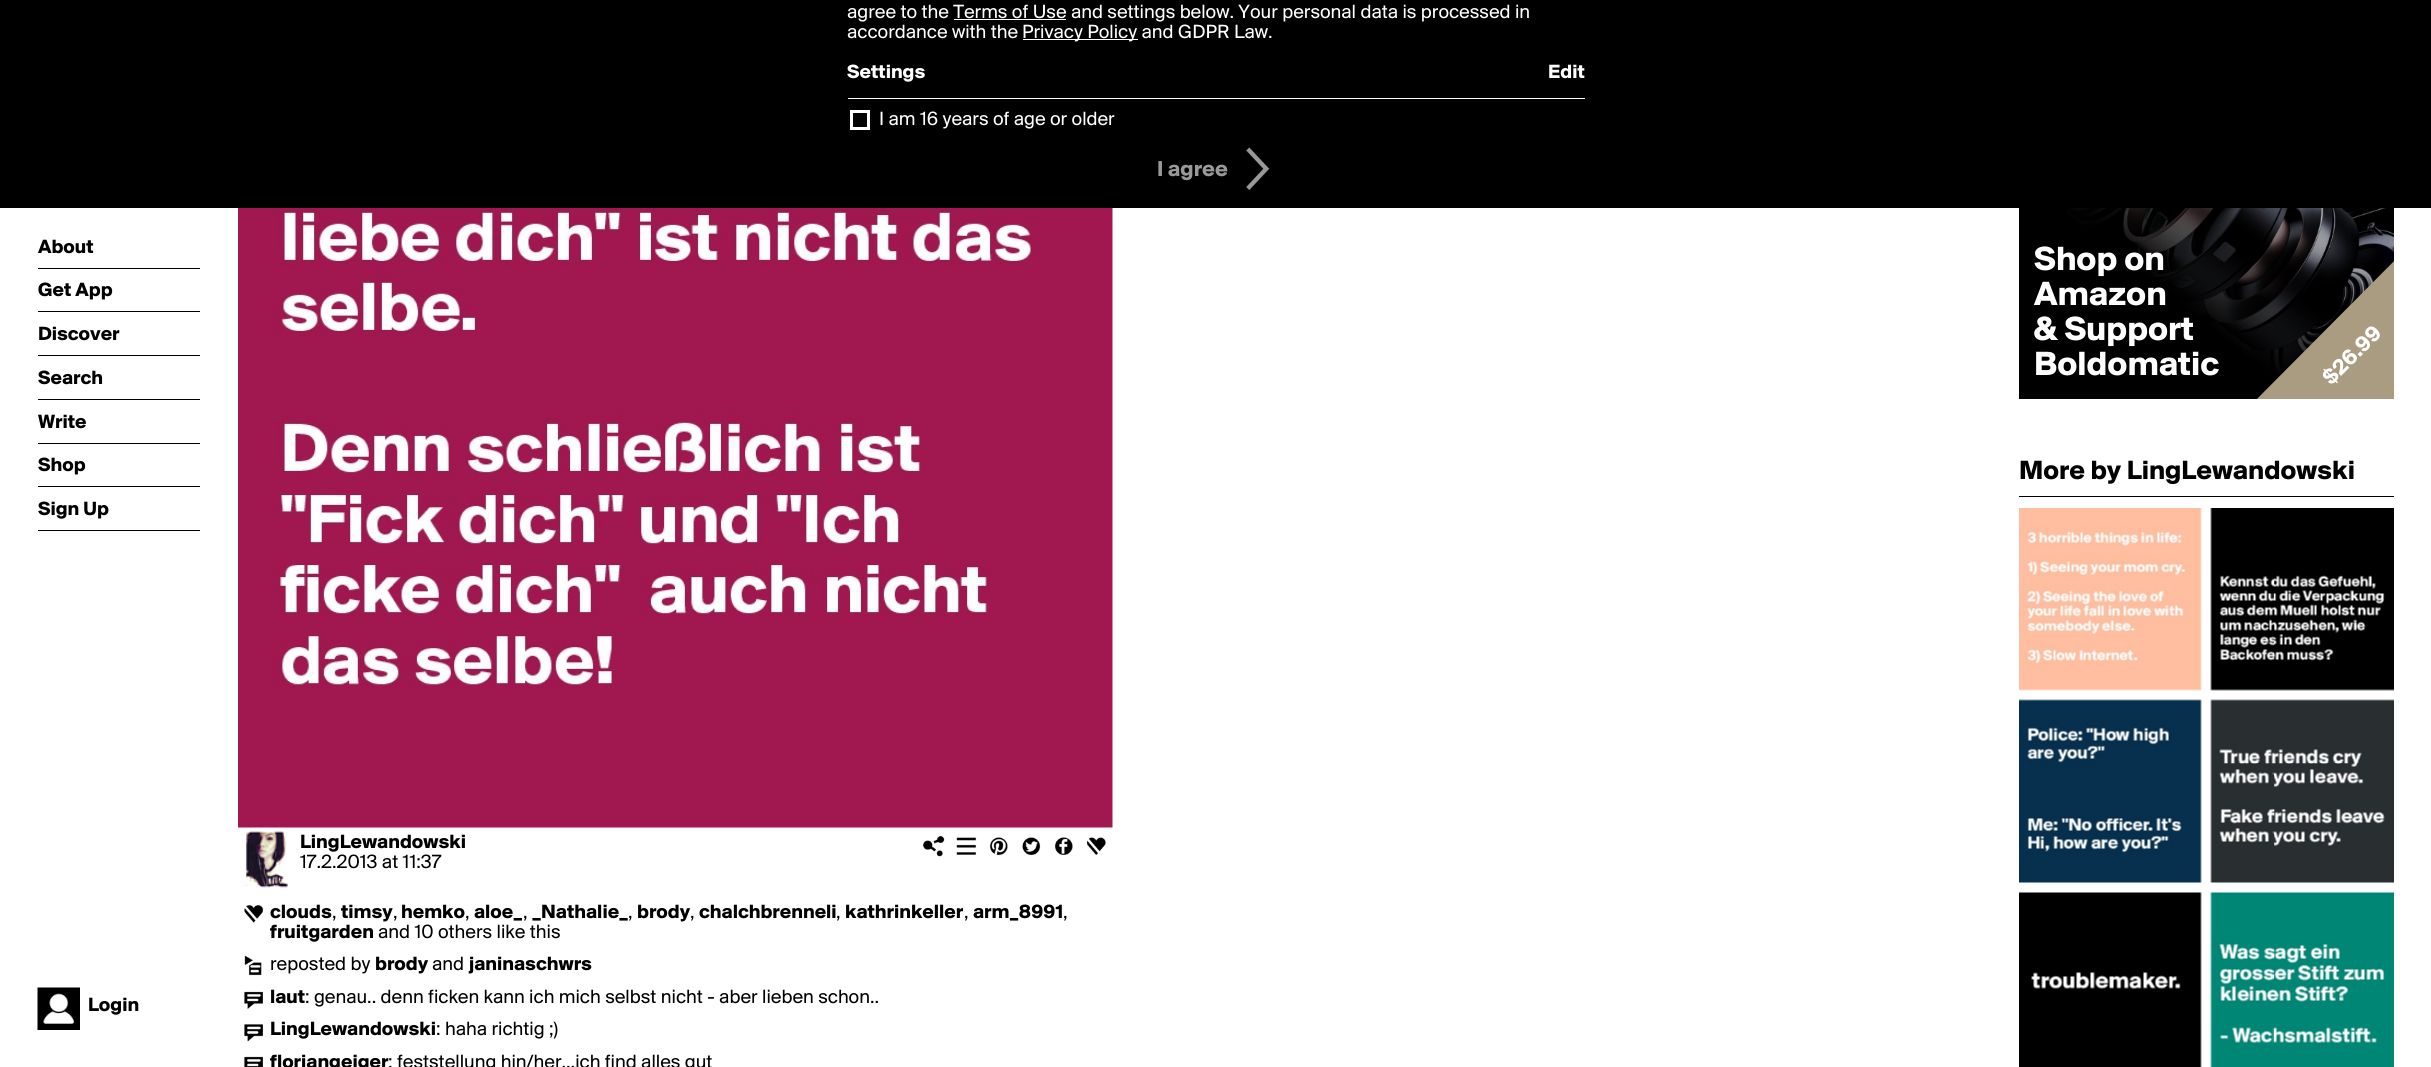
#include <cairo.h>
#include <math.h>
#include <stddef.h>


static void rgb(cairo_t *cr, int r, int g, int b)
{
	cairo_set_source_rgb(cr, r / 255.0, g / 255.0, b / 255.0);
}

static void face(cairo_t *cr, const char *family, double size, int italic, int bold)
{
	cairo_select_font_face(cr, family, italic ? CAIRO_FONT_SLANT_ITALIC : CAIRO_FONT_SLANT_NORMAL,
		bold ? CAIRO_FONT_WEIGHT_BOLD : CAIRO_FONT_WEIGHT_NORMAL);
	cairo_set_font_size(cr, size);
}

static void label(cairo_t *cr, double x, double y, const char *s)
{
	cairo_move_to(cr, x, y);
	cairo_show_text(cr, s);
}

static void rect(cairo_t *cr, double x, double y, double w, double h)
{
	cairo_rectangle(cr, x, y, w, h);
	cairo_fill(cr);
}

static void image(cairo_t *cr, const char *path, double x, double y, double w, double h)
{
	cairo_surface_t *image = cairo_image_surface_create_from_png(path);
	cairo_save(cr);
	cairo_set_source_surface(cr, image, x, y);
	cairo_rectangle(cr, x, y, w, h);
	cairo_fill(cr);
	cairo_restore(cr);
	cairo_surface_destroy(image);
}

static void draw(cairo_t *cr) {
	cairo_pattern_t *gradient;
	rgb(cr, 255, 255, 255);
	cairo_paint(cr);
	rgb(cr, 0, 0, 0);
	rect(cr, 0, 0, 2431, 208);
	face(cr, "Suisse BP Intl", 20, 0, 0);
	rgb(cr, 255, 255, 255);
	label(cr, 847, 18, "agree to the Terms of Use and settings below. Your personal data is processed in");
	rect(cr, 954, 19, 112, 1);
	label(cr, 847, 38, "accordance with the");
	rect(cr, 1023, 39, 115, 1);
	label(cr, 1022, 38, "Privacy Policy and GDPR Law.");
	face(cr, "Suisse BP Intl", 20, 0, 1);
	label(cr, 847, 78, "Settings");
	label(cr, 1548, 78, "Edit");
	rect(cr, 848, 98, 737, 1);
	cairo_rectangle(cr, 851.5, 111.5, 17, 17);
	cairo_set_line_width(cr, 3);
	cairo_stroke(cr);
	face(cr, "Suisse BP Intl", 20, 0, 0);
	label(cr, 879, 125, "I am 16 years of age or older");
	face(cr, "Suisse BP Intl", 22.5, 0, 1);
	rgb(cr, 153, 153, 153);
	label(cr, 1157, 176, "I agree");
	image(cr, "image0.png", 1246, 147, 24, 43);
	rgb(cr, 0, 0, 0);
	rect(cr, 38, 268, 162, 1);
	face(cr, "Suisse BP Intl", 20, 0, 1);
	label(cr, 38, 253, "About");
	rect(cr, 38, 311, 162, 1);
	label(cr, 38, 296, "Get App");
	rect(cr, 38, 355, 162, 1);
	label(cr, 38, 340, "Discover");
	rect(cr, 38, 399, 162, 1);
	label(cr, 38, 384, "Search");
	rect(cr, 38, 443, 162, 1);
	label(cr, 38, 428, "Write");
	rect(cr, 38, 486, 162, 1);
	label(cr, 38, 471, "Shop");
	rect(cr, 38, 530, 162, 1);
	label(cr, 38, 515, "Sign Up");
	image(cr, "image1.png", 37, 987, 43, 43);
	label(cr, 88, 1011, "Login");
	rect(cr, 2059, 208, 335, 171);
	image(cr, "image2.png", 2066, 208, 328, 171);
	gradient = cairo_pattern_create_linear(2368, 3.9, 2044, 419);
	cairo_pattern_add_color_stop_rgba(gradient, 0.29, 0, 0, 0, 0);
	cairo_pattern_add_color_stop_rgba(gradient, 0.67, 0, 0, 0, 1);
	cairo_set_source(cr, gradient);
	cairo_pattern_destroy(gradient);
	rect(cr, 2019, 208, 375, 191);
	face(cr, "Suisse BP Intl", 35, 0, 1);
	rgb(cr, 255, 255, 255);
	label(cr, 2034, 270, "Shop on");
	label(cr, 2034, 305, "Amazon");
	label(cr, 2034, 340, "& Support");
	label(cr, 2034, 375, "Boldomatic");
	cairo_save(cr);
	cairo_rectangle(cr, 2019, 24, 375, 375);
	cairo_clip(cr);
	rgb(cr, 170, 156, 129);
	cairo_new_path(cr);
	cairo_move_to(cr, 2239, 417);
	cairo_line_to(cr, 2413, 242);
	cairo_line_to(cr, 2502, 331);
	cairo_line_to(cr, 2328, 505);
	cairo_close_path(cr);
	cairo_fill(cr);
	cairo_restore(cr);
	face(cr, "Suisse BP Intl", 22.5, 0, 1);
	cairo_save(cr);
	cairo_translate(cr, 2331, 386);
	cairo_rotate(cr, -45 * M_PI / 180);
	label(cr, 0, 0, "$26.99");
	cairo_restore(cr);
	rgb(cr, 0, 0, 0);
	rect(cr, 2019, 496, 375, 1);
	face(cr, "Suisse BP Intl", 27.5, 0, 1);
	label(cr, 2019, 479, "More by LingLewandowski");
	image(cr, "image3.png", 2019, 508, 183, 183);
	image(cr, "image4.png", 2210, 508, 184, 183);
	image(cr, "image5.png", 2019, 699, 183, 184);
	image(cr, "image6.png", 2210, 699, 184, 184);
	image(cr, "image7.png", 2019, 892, 183, 175);
	image(cr, "image8.png", 2210, 892, 184, 175);
	image(cr, "image9.png", 238, 208, 875, 620);
	image(cr, "image10.png", 240, 831, 48, 57);
	face(cr, "Suisse BP Intl", 20, 0, 1);
	label(cr, 300, 848, "LingLewandowski");
	face(cr, "Suisse BP Intl", 20, 0, 0);
	label(cr, 300, 868, "17.2.2013 at 11:37");
	image(cr, "image11.png", 923, 835, 22, 22);
	image(cr, "image12.png", 956, 837, 21, 18);
	image(cr, "image13.png", 989, 837, 19, 19);
	image(cr, "image14.png", 1022, 837, 19, 19);
	image(cr, "image15.png", 1054, 837, 19, 18);
	image(cr, "image16.png", 1086, 837, 20, 18);
	image(cr, "image17.png", 244, 905, 19, 18);
	face(cr, "Suisse BP Intl", 20, 0, 1);
	label(cr, 270, 918, "clouds");
	face(cr, "Suisse BP Intl", 20, 0, 0);
	label(cr, 332, 918, ",");
	face(cr, "Suisse BP Intl", 20, 0, 1);
	label(cr, 341, 918, "timsy");
	face(cr, "Suisse BP Intl", 20, 0, 0);
	label(cr, 393, 918, ",");
	face(cr, "Suisse BP Intl", 20, 0, 1);
	label(cr, 401, 918, "hemko");
	face(cr, "Suisse BP Intl", 20, 0, 0);
	label(cr, 465, 918, ",");
	face(cr, "Suisse BP Intl", 20, 0, 1);
	label(cr, 474, 918, "aloe_");
	face(cr, "Suisse BP Intl", 20, 0, 0);
	label(cr, 523, 918, ",");
	face(cr, "Suisse BP Intl", 20, 0, 1);
	label(cr, 532, 918, "_Nathalie_");
	face(cr, "Suisse BP Intl", 20, 0, 0);
	label(cr, 628, 918, ",");
	face(cr, "Suisse BP Intl", 20, 0, 1);
	label(cr, 637, 918, "brody");
	face(cr, "Suisse BP Intl", 20, 0, 0);
	label(cr, 690, 918, ",");
	face(cr, "Suisse BP Intl", 20, 0, 1);
	label(cr, 699, 918, "chalchbrenneli");
	face(cr, "Suisse BP Intl", 20, 0, 0);
	label(cr, 836, 918, ",");
	face(cr, "Suisse BP Intl", 20, 0, 1);
	label(cr, 845, 918, "kathrinkeller");
	face(cr, "Suisse BP Intl", 20, 0, 0);
	label(cr, 964, 918, ",");
	face(cr, "Suisse BP Intl", 20, 0, 1);
	label(cr, 973, 918, "arm_8991");
	face(cr, "Suisse BP Intl", 20, 0, 0);
	label(cr, 1063, 918, ",");
	face(cr, "Suisse BP Intl", 20, 0, 1);
	label(cr, 270, 938, "fruitgarden");
	face(cr, "Suisse BP Intl", 20, 0, 0);
	label(cr, 378, 938, "and 10 others like this");
	image(cr, "image18.png", 244, 955, 18, 21);
	label(cr, 270, 970, "reposted by");
	face(cr, "Suisse BP Intl", 20, 0, 1);
	label(cr, 375, 970, "brody");
	face(cr, "Suisse BP Intl", 20, 0, 0);
	label(cr, 432, 970, "and");
	face(cr, "Suisse BP Intl", 20, 0, 1);
	label(cr, 469, 970, "janinaschwrs");
	image(cr, "image19.png", 244, 991, 19, 18);
	label(cr, 270, 1003, "laut");
	face(cr, "Suisse BP Intl", 20, 0, 0);
	label(cr, 305, 1003, ": genau.. denn ficken kann ich mich selbst nicht - aber lieben schon..");
	image(cr, "image20.png", 244, 1024, 19, 18);
	face(cr, "Suisse BP Intl", 20, 0, 1);
	label(cr, 270, 1035, "LingLewandowski");
	face(cr, "Suisse BP Intl", 20, 0, 0);
	label(cr, 436, 1035, ": haha richtig ;)");
	image(cr, "image21.png", 244, 1056, 19, 11);
	face(cr, "Suisse BP Intl", 20, 0, 1);
	label(cr, 270, 1068, "floriangeiger");
	face(cr, "Suisse BP Intl", 20, 0, 0);
	label(cr, 388, 1068, ": feststellung hin/her...ich find alles gut");
}

int main(void) {
	cairo_surface_t *surface = cairo_image_surface_create(CAIRO_FORMAT_RGB24, 2431, 1067);
	cairo_t *cr = cairo_create(surface);
	cairo_font_options_t *options = cairo_font_options_create();
	cairo_font_options_set_hint_metrics(options, CAIRO_HINT_METRICS_OFF);
	cairo_font_options_set_hint_style(options, CAIRO_HINT_STYLE_NONE);
	cairo_set_font_options(cr, options);
	cairo_set_miter_limit(cr, 4);
	draw(cr);
	cairo_surface_write_to_png(surface, "render.png");
	cairo_font_options_destroy(options);
	cairo_destroy(cr);
	cairo_surface_destroy(surface);
	return 0;
}
